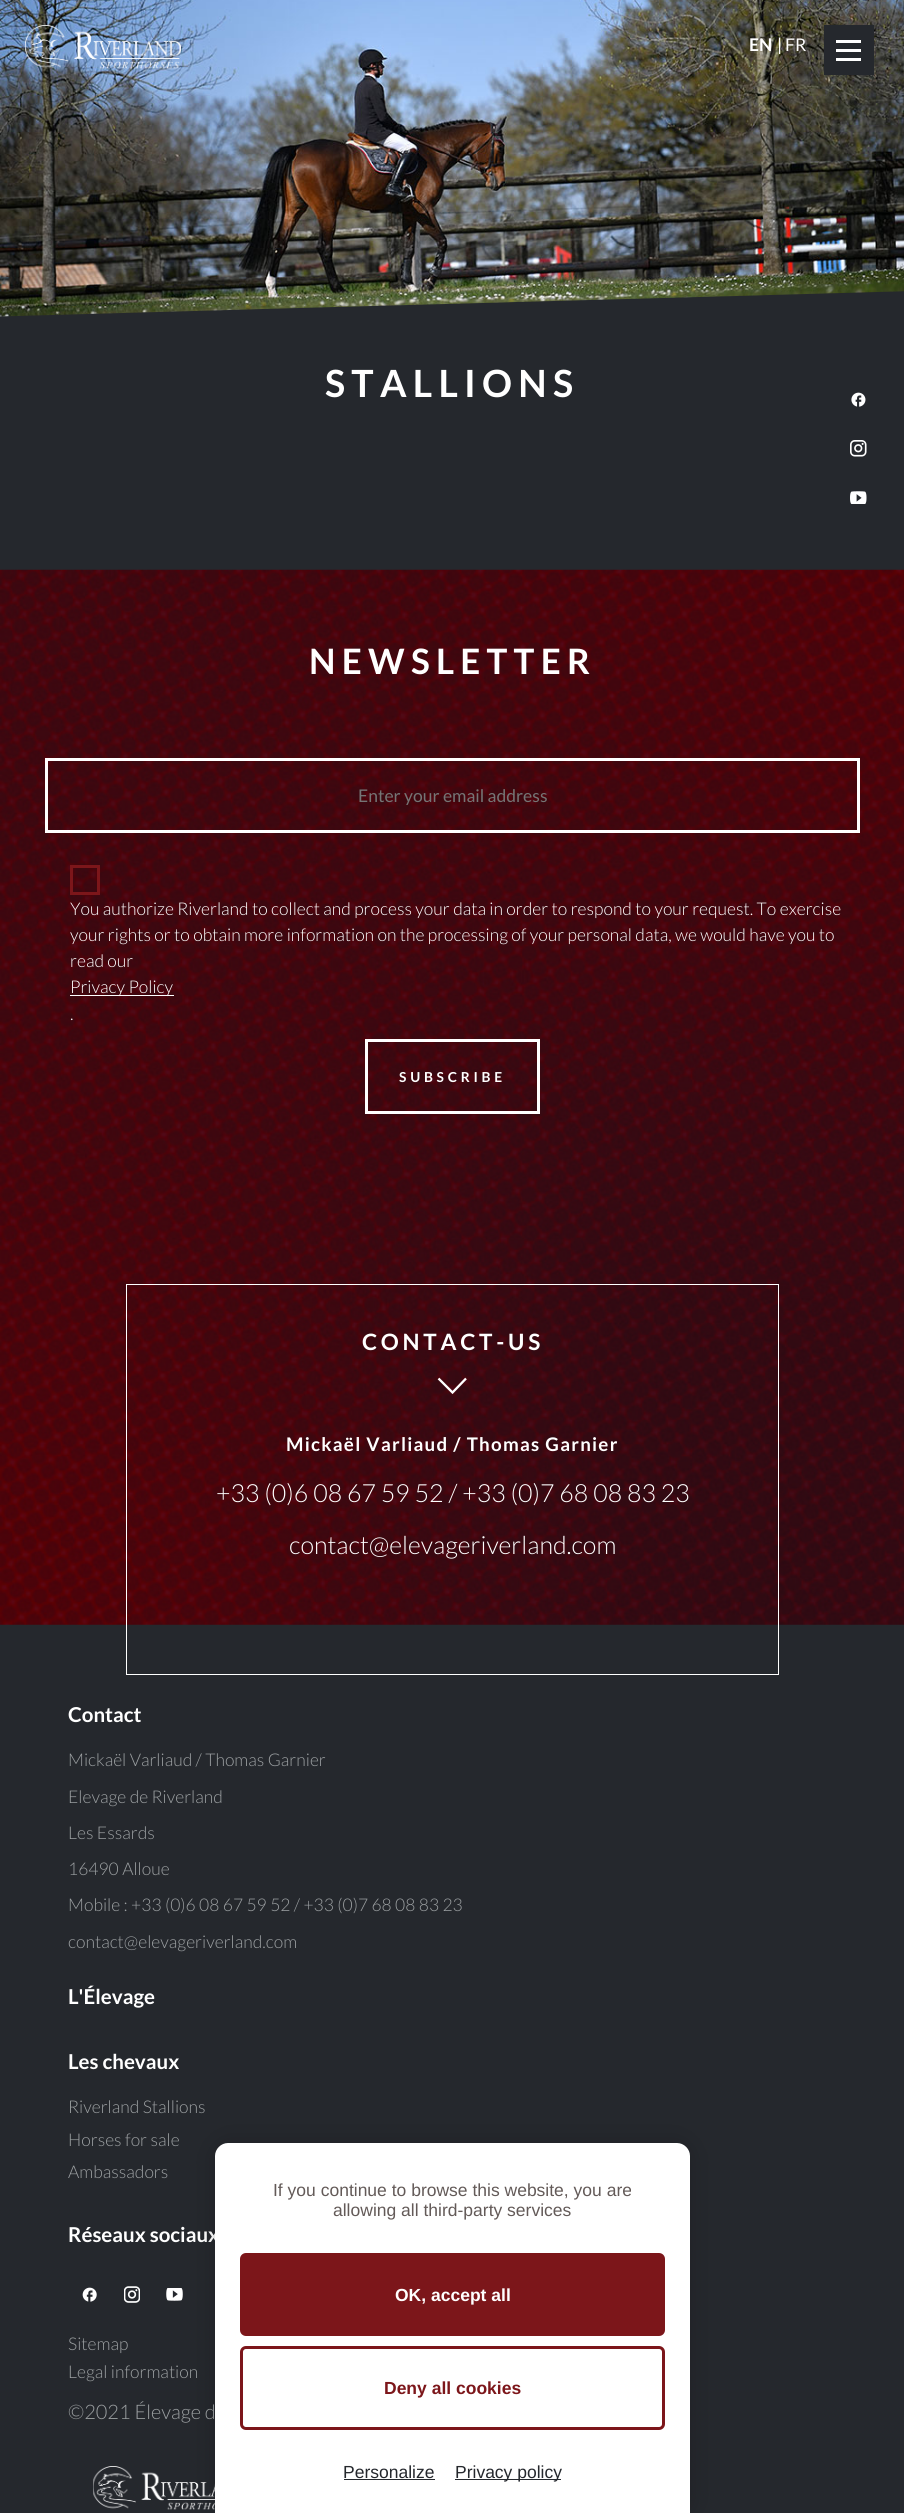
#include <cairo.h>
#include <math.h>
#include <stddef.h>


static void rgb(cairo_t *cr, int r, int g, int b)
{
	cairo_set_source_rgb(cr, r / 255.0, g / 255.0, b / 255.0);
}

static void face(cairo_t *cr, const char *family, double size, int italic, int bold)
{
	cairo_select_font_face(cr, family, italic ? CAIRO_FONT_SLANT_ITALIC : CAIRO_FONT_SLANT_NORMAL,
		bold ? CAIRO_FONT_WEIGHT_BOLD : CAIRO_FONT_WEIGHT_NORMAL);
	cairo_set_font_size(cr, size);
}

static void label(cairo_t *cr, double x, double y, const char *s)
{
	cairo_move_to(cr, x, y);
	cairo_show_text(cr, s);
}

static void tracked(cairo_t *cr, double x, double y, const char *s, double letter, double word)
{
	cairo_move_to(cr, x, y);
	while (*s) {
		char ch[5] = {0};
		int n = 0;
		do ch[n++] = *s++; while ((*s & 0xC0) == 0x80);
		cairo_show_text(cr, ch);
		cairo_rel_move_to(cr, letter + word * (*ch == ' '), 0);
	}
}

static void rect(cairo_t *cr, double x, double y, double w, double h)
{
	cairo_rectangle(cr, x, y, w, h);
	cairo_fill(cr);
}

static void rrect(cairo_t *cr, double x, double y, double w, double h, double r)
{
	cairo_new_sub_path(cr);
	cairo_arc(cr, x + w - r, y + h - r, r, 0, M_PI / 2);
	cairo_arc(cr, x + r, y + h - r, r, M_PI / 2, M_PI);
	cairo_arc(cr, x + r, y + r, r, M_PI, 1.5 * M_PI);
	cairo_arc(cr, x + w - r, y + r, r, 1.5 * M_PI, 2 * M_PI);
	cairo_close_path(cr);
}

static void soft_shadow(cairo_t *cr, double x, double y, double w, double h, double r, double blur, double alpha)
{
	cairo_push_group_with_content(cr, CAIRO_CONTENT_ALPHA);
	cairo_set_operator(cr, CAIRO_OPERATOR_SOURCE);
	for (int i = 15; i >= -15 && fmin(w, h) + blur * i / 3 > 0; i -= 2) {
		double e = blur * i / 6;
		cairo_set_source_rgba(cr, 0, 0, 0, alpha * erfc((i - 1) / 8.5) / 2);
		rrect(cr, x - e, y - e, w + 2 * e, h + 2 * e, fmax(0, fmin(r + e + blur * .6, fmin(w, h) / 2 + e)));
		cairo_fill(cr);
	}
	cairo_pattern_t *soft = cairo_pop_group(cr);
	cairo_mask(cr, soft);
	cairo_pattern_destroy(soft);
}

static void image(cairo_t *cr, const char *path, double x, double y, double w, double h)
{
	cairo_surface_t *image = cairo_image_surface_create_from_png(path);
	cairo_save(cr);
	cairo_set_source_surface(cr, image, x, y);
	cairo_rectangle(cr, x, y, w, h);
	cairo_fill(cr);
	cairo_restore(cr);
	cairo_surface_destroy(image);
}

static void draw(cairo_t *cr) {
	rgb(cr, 37, 40, 45);
	cairo_paint(cr);
	image(cr, "image1.png", 0, 0, 904, 317);
	image(cr, "image0.png", 25, 25, 156, 44);
	face(cr, "Lato", 17.5, 0, 1);
	rgb(cr, 255, 255, 255);
	label(cr, 749, 51, "EN");
	face(cr, "Lato", 17.5, 0, 0);
	label(cr, 777, 51, "|");
	label(cr, 785, 51, "FR");
	rgb(cr, 37, 40, 45);
	rect(cr, 824, 25, 50, 50);
	rgb(cr, 255, 255, 255);
	rect(cr, 836, 40, 25, 3);
	rect(cr, 836, 49, 25, 3);
	rect(cr, 836, 58, 25, 3);
	face(cr, "Lato", 37.5, 0, 1);
	tracked(cr, 325, 397, "STALLIONS", 6.25, 0);
	image(cr, "image2.png", 851, 392, 15, 15);
	image(cr, "image3.png", 850, 440, 17, 17);
	image(cr, "image4.png", 850, 491, 17, 13);
	image(cr, "image5.png", 0, 569, 904, 1056);
	face(cr, "Lato", 35, 0, 1);
	tracked(cr, 309, 674, "NEWSLETTER", 6.25, 0);
	cairo_rectangle(cr, 46.5, 759.5, 812, 72);
	cairo_set_line_width(cr, 3);
	cairo_stroke(cr);
	face(cr, "Lato", 17.5, 0, 0);
	rgb(cr, 117, 117, 117);
	label(cr, 358, 802, "Enter your email address");
	cairo_rectangle(cr, 71.5, 866.5, 27, 27);
	rgb(cr, 124, 22, 26);
	cairo_stroke(cr);
	face(cr, "Lato Light", 17.5, 0, 0);
	rgb(cr, 255, 255, 255);
	label(cr, 70, 915, "You authorize Riverland to collect and process your data in order to respond to your request. To exercise");
	label(cr, 70, 941, "your rights or to obtain more information on the processing of your personal data, we would have you to");
	label(cr, 70, 967, "read our");
	rect(cr, 70, 995, 104, 1);
	label(cr, 70, 993, "Privacy Policy");
	label(cr, 70, 1020, ".");
	cairo_rectangle(cr, 366.5, 1040.5, 172, 72);
	cairo_stroke(cr);
	face(cr, "Lato", 13.75, 0, 1);
	tracked(cr, 399, 1082, "SUBSCRIBE", 3.75, 0);
	cairo_rectangle(cr, 126.5, 1284.5, 652, 390);
	cairo_set_line_width(cr, 1);
	cairo_stroke(cr);
	face(cr, "Lato", 22.5, 0, 1);
	tracked(cr, 362, 1350, "CONTACT-US", 3.75, 0);
	cairo_new_path(cr);
	cairo_move_to(cr, 466, 1378.5);
	cairo_line_to(cr, 452.5, 1392.5);
	cairo_line_to(cr, 438.5, 1378.5);
	cairo_set_line_width(cr, 2.3);
	cairo_stroke(cr);
	face(cr, "Lato", 18.75, 0, 1);
	tracked(cr, 286, 1451, "Mickaël Varliaud / Thomas Garnier", 1.25, 0);
	face(cr, "Lato Light", 25, 0, 0);
	label(cr, 216, 1502, "+33 (0)6 08 67 59 52 / +33 (0)7 68 08 83 23");
	label(cr, 289, 1554, "contact@elevageriverland.com");
	face(cr, "Lato", 20.5, 0, 1);
	label(cr, 68, 1722, "Contact");
	face(cr, "Lato Light", 17.5, 0, 0);
	rgb(cr, 156, 160, 162);
	label(cr, 68, 1766, "Mickaël Varliaud / Thomas Garnier");
	label(cr, 68, 1803, "Elevage de Riverland");
	label(cr, 68, 1839, "Les Essards");
	label(cr, 68, 1875, "16490 Alloue");
	label(cr, 68, 1911, "Mobile : +33 (0)6 08 67 59 52 / +33 (0)7 68 08 83 23");
	label(cr, 68, 1948, "contact@elevageriverland.com");
	face(cr, "Lato", 20.5, 0, 1);
	rgb(cr, 255, 255, 255);
	label(cr, 68, 2004, "L'Élevage");
	label(cr, 68, 2069, "Les chevaux");
	face(cr, "Lato Light", 17.5, 0, 0);
	rgb(cr, 156, 160, 162);
	label(cr, 68, 2113, "Riverland Stallions");
	label(cr, 68, 2146, "Horses for sale");
	label(cr, 68, 2178, "Ambassadors");
	face(cr, "Lato", 20.5, 0, 1);
	rgb(cr, 255, 255, 255);
	label(cr, 68, 2242, "Réseaux sociaux");
	image(cr, "image6.png", 82, 2287, 15, 15);
	image(cr, "image7.png", 124, 2286, 16, 17);
	image(cr, "image8.png", 166, 2288, 17, 13);
	face(cr, "Lato Light", 17.5, 0, 0);
	rgb(cr, 156, 160, 162);
	label(cr, 68, 2350, "Sitemap");
	label(cr, 68, 2378, "Legal information");
	face(cr, "Lato Light", 20, 0, 0);
	label(cr, 68, 2419, "©2021 Élevage d");
	image(cr, "image9.png", 93, 2466, 122, 44);
	rgb(cr, 0, 0, 0);
	soft_shadow(cr, 215, 2143, 475, 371, 13, 12.5, 0.18);
	rgb(cr, 255, 255, 255);
	cairo_new_path(cr);
	cairo_move_to(cr, 228, 2143);
	cairo_line_to(cr, 677, 2143);
	cairo_curve_to(cr, 684, 2143, 690, 2149, 690, 2156);
	cairo_line_to(cr, 690, 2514);
	cairo_line_to(cr, 215, 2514);
	cairo_line_to(cr, 215, 2156);
	cairo_curve_to(cr, 215, 2149, 221, 2143, 228, 2143);
	cairo_close_path(cr);
	cairo_fill(cr);
	face(cr, "Liberation Sans", 17.5, 0, 0);
	rgb(cr, 99, 90, 88);
	label(cr, 273, 2196, "If you continue to browse this website, you are");
	label(cr, 333, 2216, "allowing all third-party services");
	rgb(cr, 124, 22, 26);
	rrect(cr, 241.5, 2254.5, 422, 80, 4.5);
	cairo_fill_preserve(cr);
	cairo_set_line_width(cr, 3);
	cairo_stroke(cr);
	face(cr, "Liberation Sans", 17.5, 0, 1);
	rgb(cr, 255, 255, 255);
	label(cr, 395, 2301, "OK, accept all");
	rrect(cr, 241.5, 2347.5, 422, 81, 4.5);
	rgb(cr, 124, 22, 26);
	cairo_stroke(cr);
	label(cr, 384, 2394, "Deny all cookies");
	face(cr, "Liberation Sans", 17.5, 0, 0);
	rgb(cr, 37, 40, 45);
	label(cr, 343, 2478, "Personalize");
	rect(cr, 344, 2479, 91, 1);
	rect(cr, 455, 2479, 106, 1);
	label(cr, 455, 2478, "Privacy policy");
}

int main(void) {
	cairo_surface_t *surface = cairo_image_surface_create(CAIRO_FORMAT_RGB24, 904, 2513);
	cairo_t *cr = cairo_create(surface);
	cairo_font_options_t *options = cairo_font_options_create();
	cairo_font_options_set_hint_metrics(options, CAIRO_HINT_METRICS_OFF);
	cairo_font_options_set_hint_style(options, CAIRO_HINT_STYLE_NONE);
	cairo_set_font_options(cr, options);
	cairo_set_miter_limit(cr, 4);
	draw(cr);
	cairo_surface_write_to_png(surface, "render.png");
	cairo_font_options_destroy(options);
	cairo_destroy(cr);
	cairo_surface_destroy(surface);
	return 0;
}
